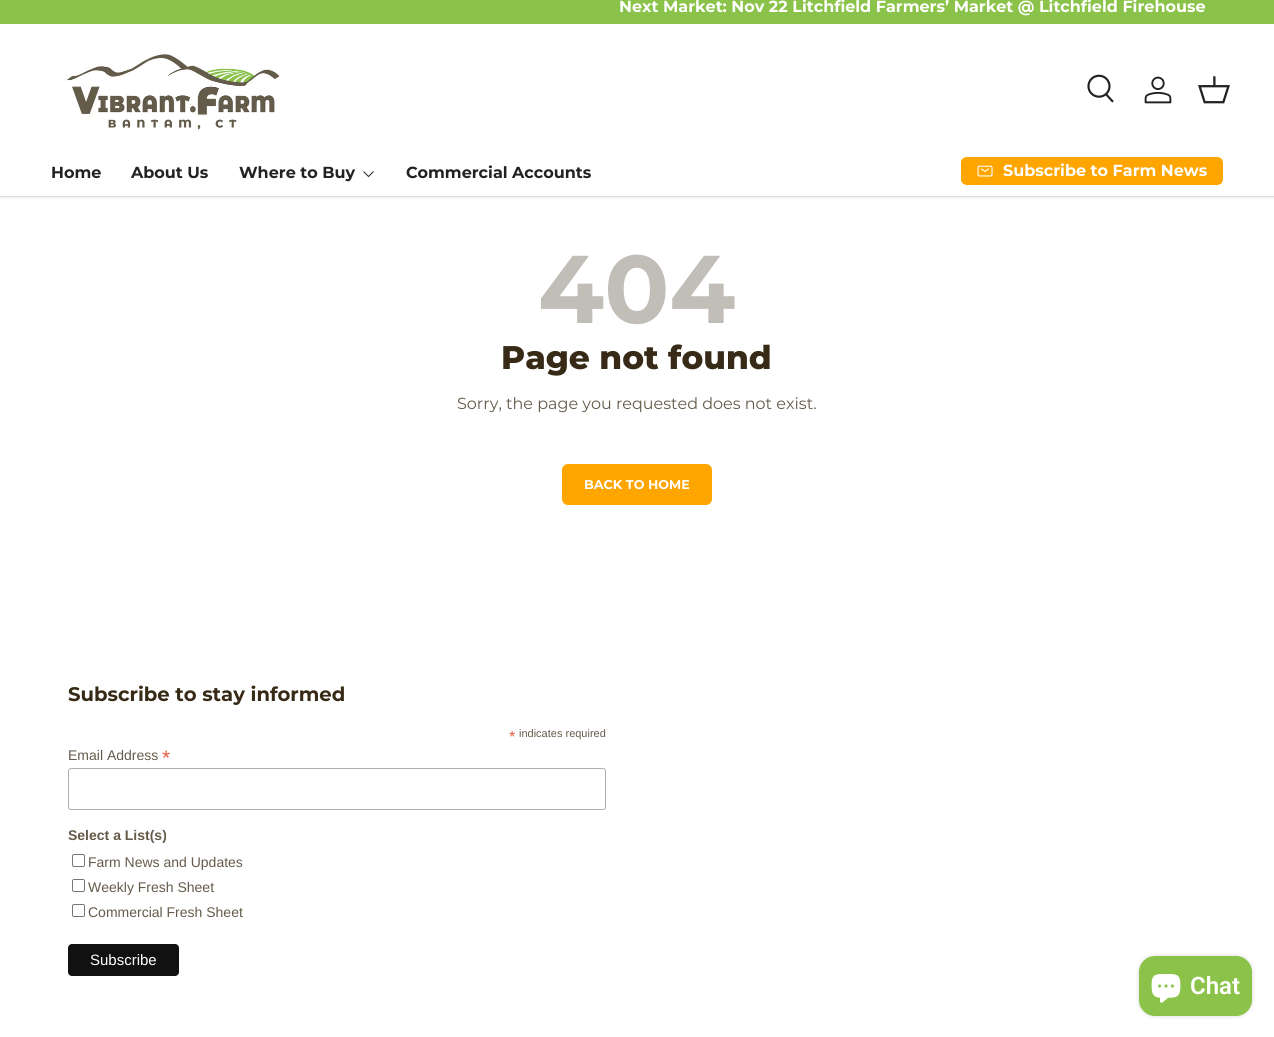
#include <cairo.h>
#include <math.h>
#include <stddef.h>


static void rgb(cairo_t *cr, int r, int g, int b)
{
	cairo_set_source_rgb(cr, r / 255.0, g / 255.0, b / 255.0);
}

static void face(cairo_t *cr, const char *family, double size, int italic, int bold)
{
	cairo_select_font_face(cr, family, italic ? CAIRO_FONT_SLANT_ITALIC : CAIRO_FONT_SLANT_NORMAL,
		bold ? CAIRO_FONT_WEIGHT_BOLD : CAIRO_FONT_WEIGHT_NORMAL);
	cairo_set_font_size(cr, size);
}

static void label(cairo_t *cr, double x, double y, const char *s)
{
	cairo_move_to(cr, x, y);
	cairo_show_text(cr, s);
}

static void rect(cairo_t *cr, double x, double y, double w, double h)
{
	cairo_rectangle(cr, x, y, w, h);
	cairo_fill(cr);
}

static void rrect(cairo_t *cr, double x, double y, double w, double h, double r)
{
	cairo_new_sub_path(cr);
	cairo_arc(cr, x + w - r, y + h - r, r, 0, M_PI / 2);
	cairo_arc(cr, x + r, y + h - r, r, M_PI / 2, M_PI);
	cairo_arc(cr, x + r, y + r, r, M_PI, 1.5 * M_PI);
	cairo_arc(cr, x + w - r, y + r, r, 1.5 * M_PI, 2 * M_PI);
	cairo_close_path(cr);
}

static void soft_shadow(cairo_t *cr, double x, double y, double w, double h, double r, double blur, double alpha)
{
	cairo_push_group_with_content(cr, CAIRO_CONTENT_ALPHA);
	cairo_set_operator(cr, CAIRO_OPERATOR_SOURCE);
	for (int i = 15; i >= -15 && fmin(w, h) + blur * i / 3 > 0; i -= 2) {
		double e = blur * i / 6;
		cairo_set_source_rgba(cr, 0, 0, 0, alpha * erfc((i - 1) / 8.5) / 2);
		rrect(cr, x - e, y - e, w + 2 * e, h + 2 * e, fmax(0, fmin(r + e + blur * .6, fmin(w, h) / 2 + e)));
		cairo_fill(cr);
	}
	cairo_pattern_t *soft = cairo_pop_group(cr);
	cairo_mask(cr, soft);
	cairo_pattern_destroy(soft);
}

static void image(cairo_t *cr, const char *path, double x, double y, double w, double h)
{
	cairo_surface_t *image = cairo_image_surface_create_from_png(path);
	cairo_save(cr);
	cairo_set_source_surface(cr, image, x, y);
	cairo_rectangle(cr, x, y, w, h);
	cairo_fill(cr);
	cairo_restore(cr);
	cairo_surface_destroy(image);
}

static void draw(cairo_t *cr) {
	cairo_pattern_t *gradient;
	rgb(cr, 255, 255, 255);
	cairo_paint(cr);
	cairo_save(cr);
	cairo_rectangle(cr, 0, 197, 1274, 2);
	cairo_clip(cr);
	rgb(cr, 0, 0, 0);
	soft_shadow(cr, -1, 23, 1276, 175, 0, 1.5, 0.08);
	cairo_restore(cr);
	rgb(cr, 139, 195, 74);
	rect(cr, 0, 0, 1274, 24);
	face(cr, "Montserrat", 16, 0, 1);
	rgb(cr, 255, 255, 255);
	label(cr, 619, 12, "Next Market: Nov 22 Litchfield Farmers’ Market @ Litchfield Firehouse");
	image(cr, "image0.png", 66, 54, 214, 76);
	image(cr, "image1.png", 1087, 74, 27, 29);
	image(cr, "image2.png", 1144, 76, 28, 28);
	image(cr, "image3.png", 1198, 76, 32, 28);
	rgb(cr, 34, 34, 34);
	label(cr, 51, 178, "Home");
	label(cr, 131, 178, "About Us");
	label(cr, 239, 178, "Where to Buy");
	cairo_new_path(cr);
	cairo_move_to(cr, 373.5, 171.5);
	cairo_line_to(cr, 368.5, 176.5);
	cairo_line_to(cr, 363.5, 171.5);
	cairo_set_line_width(cr, 1);
	cairo_stroke(cr);
	label(cr, 406, 178, "Commercial Accounts");
	cairo_save(cr);
	rrect(cr, 961, 157, 262, 28, 6);
	cairo_clip(cr);
	gradient = cairo_pattern_create_linear(462, 79, 1202, 263);
	cairo_pattern_add_color_stop_rgba(gradient, 0.6, 1, 0.722, 0.208, 1);
	cairo_pattern_add_color_stop_rgba(gradient, 0.6, 1, 0.647, 0, 1);
	cairo_pattern_add_color_stop_rgba(gradient, 1, 1, 0.647, 0, 1);
	cairo_set_source(cr, gradient);
	cairo_pattern_destroy(gradient);
	rect(cr, 961, 158, 261, 26);
	cairo_restore(cr);
	rrect(cr, 961.5, 157.5, 261, 27, 5.5);
	rgb(cr, 255, 165, 0);
	cairo_stroke(cr);
	image(cr, "image4.png", 977, 165, 16, 12);
	rgb(cr, 255, 255, 255);
	label(cr, 1003, 176, "Subscribe to Farm News");
	rgb(cr, 222, 222, 222);
	rect(cr, 0, 196, 1274, 1);
	face(cr, "Montserrat", 96, 0, 1);
	rgb(cr, 193, 189, 183);
	label(cr, 538, 323, "404");
	face(cr, "Montserrat ExtraBold", 32.75, 0, 0);
	rgb(cr, 55, 43, 23);
	label(cr, 501, 369, "Page not found");
	face(cr, "Montserrat", 16, 0, 0);
	rgb(cr, 100, 91, 74);
	label(cr, 457, 409, "Sorry, the page you requested does not exist.");
	gradient = cairo_pattern_create_linear(270, 430, 704, 539);
	cairo_pattern_add_color_stop_rgba(gradient, 0.6, 1, 0.722, 0.208, 1);
	cairo_pattern_add_color_stop_rgba(gradient, 0.6, 1, 0.647, 0, 1);
	cairo_pattern_add_color_stop_rgba(gradient, 1, 1, 0.647, 0, 1);
	cairo_set_source(cr, gradient);
	cairo_pattern_destroy(gradient);
	rrect(cr, 562, 464, 150, 41, 6);
	cairo_fill(cr);
	face(cr, "Montserrat", 12.75, 0, 1);
	rgb(cr, 255, 255, 255);
	label(cr, 584, 489, "BACK TO HOME");
	face(cr, "Montserrat", 19.6, 0, 1);
	rgb(cr, 55, 43, 23);
	label(cr, 68, 701, "Subscribe to stay informed");
	face(cr, "Liberation Sans", 16, 0, 0);
	rgb(cr, 232, 92, 65);
	label(cr, 509, 742, "*");
	face(cr, "Liberation Sans", 11, 0, 0);
	rgb(cr, 100, 91, 74);
	label(cr, 519, 737, "indicates required");
	face(cr, "Liberation Sans", 14, 0, 0);
	label(cr, 68, 760, "Email Address");
	face(cr, "Liberation Sans", 21, 0, 0);
	rgb(cr, 232, 92, 65);
	label(cr, 162, 765, "*");
	rrect(cr, 68.5, 768.5, 537, 41, 2.5);
	rgb(cr, 171, 176, 178);
	cairo_stroke(cr);
	face(cr, "Liberation Sans", 14, 0, 1);
	rgb(cr, 100, 91, 74);
	label(cr, 68, 840, "Select a List(s)");
	rrect(cr, 72.5, 854.5, 12, 12, 1.5);
	rgb(cr, 118, 118, 118);
	cairo_stroke(cr);
	face(cr, "Liberation Sans", 14, 0, 0);
	rgb(cr, 100, 91, 74);
	label(cr, 88, 867, "Farm News and Updates");
	rrect(cr, 72.5, 879.5, 12, 12, 1.5);
	rgb(cr, 118, 118, 118);
	cairo_stroke(cr);
	rgb(cr, 100, 91, 74);
	label(cr, 88, 892, "Weekly Fresh Sheet");
	rrect(cr, 72.5, 904.5, 12, 12, 1.5);
	rgb(cr, 118, 118, 118);
	cairo_stroke(cr);
	rgb(cr, 100, 91, 74);
	label(cr, 88, 917, "Commercial Fresh Sheet");
	rgb(cr, 17, 17, 17);
	rrect(cr, 68, 944, 111, 32, 4);
	cairo_fill(cr);
	face(cr, "Liberation Sans", 15, 0, 0);
	rgb(cr, 255, 255, 255);
	label(cr, 90, 965, "Subscribe");
	rgb(cr, 0, 0, 0);
	soft_shadow(cr, 1139, 956, 113, 60, 16, 2.5, 0.15);
	rgb(cr, 139, 195, 74);
	rrect(cr, 1139, 956, 113, 60, 16);
	cairo_fill(cr);
	image(cr, "image5.png", 1151, 974, 30, 29);
	face(cr, "Roboto SemiBold", 24, 0, 0);
	rgb(cr, 255, 255, 255);
	label(cr, 1190, 994, "Chat");
}

int main(void) {
	cairo_surface_t *surface = cairo_image_surface_create(CAIRO_FORMAT_RGB24, 1274, 1037);
	cairo_t *cr = cairo_create(surface);
	cairo_font_options_t *options = cairo_font_options_create();
	cairo_font_options_set_hint_metrics(options, CAIRO_HINT_METRICS_OFF);
	cairo_font_options_set_hint_style(options, CAIRO_HINT_STYLE_NONE);
	cairo_set_font_options(cr, options);
	cairo_set_miter_limit(cr, 4);
	draw(cr);
	cairo_surface_write_to_png(surface, "render.png");
	cairo_font_options_destroy(options);
	cairo_destroy(cr);
	cairo_surface_destroy(surface);
	return 0;
}
